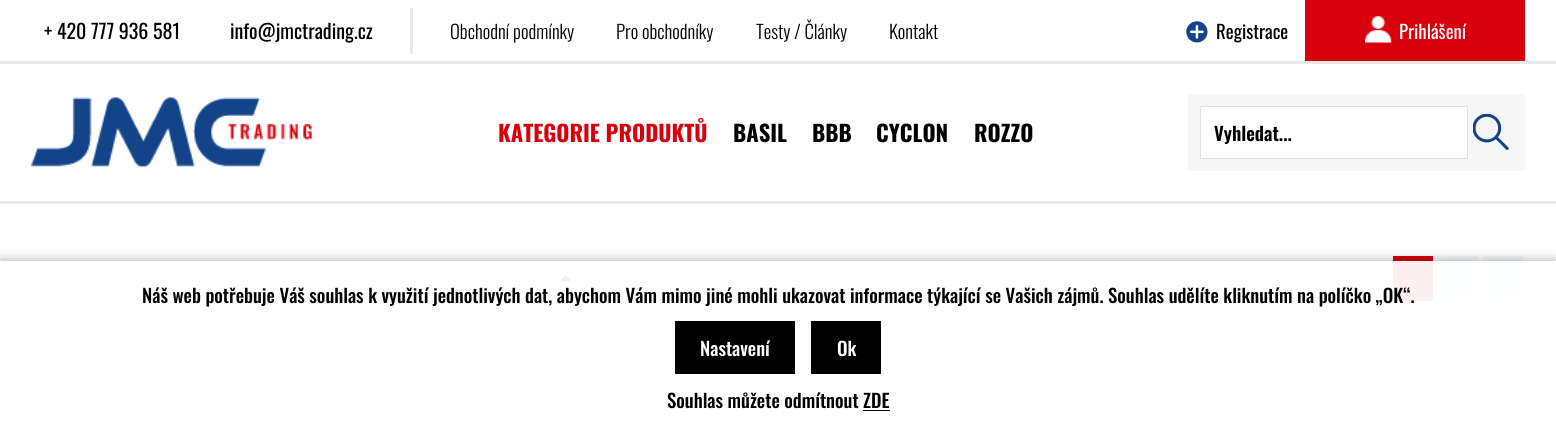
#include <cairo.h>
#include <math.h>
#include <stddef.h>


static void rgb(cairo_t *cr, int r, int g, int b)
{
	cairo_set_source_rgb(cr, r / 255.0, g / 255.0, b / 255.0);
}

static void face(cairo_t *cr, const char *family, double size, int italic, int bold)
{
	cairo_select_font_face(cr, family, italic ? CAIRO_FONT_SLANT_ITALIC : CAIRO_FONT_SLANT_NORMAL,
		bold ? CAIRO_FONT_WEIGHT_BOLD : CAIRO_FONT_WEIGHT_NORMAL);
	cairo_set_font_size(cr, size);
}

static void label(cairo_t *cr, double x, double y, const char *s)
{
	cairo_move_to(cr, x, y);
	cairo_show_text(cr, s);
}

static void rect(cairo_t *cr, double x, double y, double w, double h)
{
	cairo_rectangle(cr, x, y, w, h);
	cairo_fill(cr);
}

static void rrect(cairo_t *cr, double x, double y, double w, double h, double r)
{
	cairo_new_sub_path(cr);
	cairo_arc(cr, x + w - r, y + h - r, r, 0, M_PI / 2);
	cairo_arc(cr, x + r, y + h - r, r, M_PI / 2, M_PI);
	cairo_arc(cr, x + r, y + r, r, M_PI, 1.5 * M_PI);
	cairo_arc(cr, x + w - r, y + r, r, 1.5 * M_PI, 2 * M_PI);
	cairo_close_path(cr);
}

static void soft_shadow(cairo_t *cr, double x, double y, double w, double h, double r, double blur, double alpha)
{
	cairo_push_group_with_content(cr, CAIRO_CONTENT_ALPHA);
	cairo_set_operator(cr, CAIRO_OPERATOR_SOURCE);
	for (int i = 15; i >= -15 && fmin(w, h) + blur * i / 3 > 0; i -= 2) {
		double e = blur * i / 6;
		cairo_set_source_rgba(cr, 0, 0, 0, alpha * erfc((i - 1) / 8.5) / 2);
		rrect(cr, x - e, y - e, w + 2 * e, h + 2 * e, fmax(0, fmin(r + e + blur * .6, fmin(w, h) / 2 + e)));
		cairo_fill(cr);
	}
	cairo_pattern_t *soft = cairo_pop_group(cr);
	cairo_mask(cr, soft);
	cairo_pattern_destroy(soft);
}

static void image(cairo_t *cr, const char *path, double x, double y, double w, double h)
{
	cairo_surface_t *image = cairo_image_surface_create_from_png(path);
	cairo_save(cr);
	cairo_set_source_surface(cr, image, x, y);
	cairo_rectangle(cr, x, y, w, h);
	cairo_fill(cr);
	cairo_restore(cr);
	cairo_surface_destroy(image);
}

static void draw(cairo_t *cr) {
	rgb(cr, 255, 255, 255);
	cairo_paint(cr);
	rgb(cr, 232, 232, 232);
	rect(cr, 0, 201, 1556, 3);
	rect(cr, 0, 61, 1556, 3);
	face(cr, "Oswald", 20, 0, 0);
	rgb(cr, 0, 0, 0);
	label(cr, 44, 39, "+ 420 777 936 581");
	label(cr, 230, 39, "info@jmctrading.cz");
	rgb(cr, 232, 232, 232);
	rect(cr, 410, 8, 3, 46);
	face(cr, "Oswald Light", 18.75, 0, 0);
	rgb(cr, 0, 0, 0);
	label(cr, 450, 39, "Obchodní podmínky");
	label(cr, 616, 39, "Pro obchodníky");
	label(cr, 756, 39, "Testy / Články");
	label(cr, 889, 39, "Kontakt");
	image(cr, "image0.png", 1186, 21, 22, 22);
	face(cr, "Oswald", 18.75, 0, 0);
	label(cr, 1216, 39, "Registrace");
	rgb(cr, 217, 0, 13);
	rect(cr, 1305, 0, 220, 61);
	image(cr, "image1.png", 1365, 16, 27, 27);
	rgb(cr, 255, 255, 255);
	label(cr, 1399, 39, "Prihlášení");
	image(cr, "image2.png", 31, 97, 281, 71);
	face(cr, "Oswald", 22.5, 0, 1);
	rgb(cr, 217, 0, 13);
	label(cr, 498, 142, "KATEGORIE PRODUKTŮ");
	rgb(cr, 0, 0, 0);
	label(cr, 733, 142, "BASIL");
	label(cr, 812, 142, "BBB");
	label(cr, 876, 142, "CYCLON");
	label(cr, 974, 142, "ROZZO");
	rgb(cr, 246, 246, 246);
	rect(cr, 1188, 94, 337, 77);
	rgb(cr, 255, 255, 255);
	cairo_rectangle(cr, 1200.5, 106.5, 267, 52);
	cairo_fill_preserve(cr);
	rgb(cr, 226, 225, 225);
	cairo_set_line_width(cr, 1);
	cairo_stroke(cr);
	face(cr, "Oswald SemiBold", 18.75, 0, 0);
	rgb(cr, 0, 0, 0);
	label(cr, 1214, 141, "Vyhledat...");
	image(cr, "image3.png", 1473, 114, 36, 36);
	image(cr, "image4.png", 559, 274, 13, 8);
	rgb(cr, 217, 0, 13);
	rect(cr, 1393, 256, 40, 45);
	rgb(cr, 245, 247, 250);
	rect(cr, 1438, 256, 40, 45);
	rect(cr, 1483, 256, 40, 45);
	cairo_save(cr);
	cairo_set_fill_rule(cr, CAIRO_FILL_RULE_EVEN_ODD);
	cairo_new_path(cr);
	cairo_move_to(cr, 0, 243);
	cairo_line_to(cr, 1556, 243);
	cairo_line_to(cr, 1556, 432);
	cairo_line_to(cr, 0, 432);
	cairo_close_path(cr);
	cairo_move_to(cr, 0, 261);
	cairo_line_to(cr, 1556, 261);
	cairo_line_to(cr, 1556, 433);
	cairo_line_to(cr, 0, 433);
	cairo_close_path(cr);
	cairo_clip(cr);
	rgb(cr, 0, 0, 0);
	soft_shadow(cr, 0, 259, 1556, 171, 0, 5, 0.25);
	cairo_restore(cr);
	cairo_set_source_rgba(cr, 1, 1, 1, 0.94);
	rect(cr, 0, 261, 1556, 40);
	face(cr, "Oswald Medium", 18.75, 0, 0);
	rgb(cr, 0, 0, 0);
	label(cr, 142, 303, "Náš web potřebuje Váš souhlas k využití jednotlivých dat, abychom Vám mimo jiné mohli ukazovat informace týkající se Vašich zájmů. Souhlas udělíte kliknutím na políčko „OK“.");
	rect(cr, 675, 321, 120, 53);
	rgb(cr, 255, 255, 255);
	label(cr, 700, 356, "Nastavení");
	rgb(cr, 0, 0, 0);
	rect(cr, 811, 321, 70, 53);
	rgb(cr, 255, 255, 255);
	label(cr, 837, 356, "Ok");
	rgb(cr, 0, 0, 0);
	label(cr, 667, 408, "Souhlas můžete odmítnout ZDE");
	rect(cr, 863, 410, 27, 1);
}

int main(void) {
	cairo_surface_t *surface = cairo_image_surface_create(CAIRO_FORMAT_RGB24, 1556, 432);
	cairo_t *cr = cairo_create(surface);
	cairo_font_options_t *options = cairo_font_options_create();
	cairo_font_options_set_hint_metrics(options, CAIRO_HINT_METRICS_OFF);
	cairo_font_options_set_hint_style(options, CAIRO_HINT_STYLE_NONE);
	cairo_set_font_options(cr, options);
	cairo_set_miter_limit(cr, 4);
	draw(cr);
	cairo_surface_write_to_png(surface, "render.png");
	cairo_font_options_destroy(options);
	cairo_destroy(cr);
	cairo_surface_destroy(surface);
	return 0;
}
